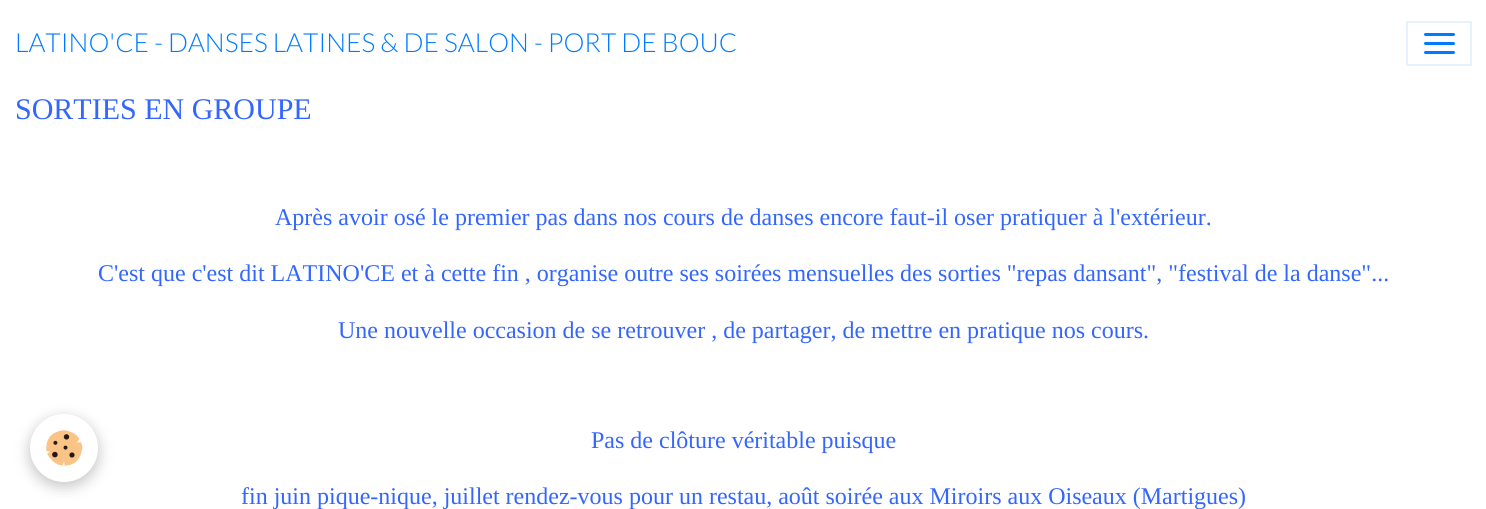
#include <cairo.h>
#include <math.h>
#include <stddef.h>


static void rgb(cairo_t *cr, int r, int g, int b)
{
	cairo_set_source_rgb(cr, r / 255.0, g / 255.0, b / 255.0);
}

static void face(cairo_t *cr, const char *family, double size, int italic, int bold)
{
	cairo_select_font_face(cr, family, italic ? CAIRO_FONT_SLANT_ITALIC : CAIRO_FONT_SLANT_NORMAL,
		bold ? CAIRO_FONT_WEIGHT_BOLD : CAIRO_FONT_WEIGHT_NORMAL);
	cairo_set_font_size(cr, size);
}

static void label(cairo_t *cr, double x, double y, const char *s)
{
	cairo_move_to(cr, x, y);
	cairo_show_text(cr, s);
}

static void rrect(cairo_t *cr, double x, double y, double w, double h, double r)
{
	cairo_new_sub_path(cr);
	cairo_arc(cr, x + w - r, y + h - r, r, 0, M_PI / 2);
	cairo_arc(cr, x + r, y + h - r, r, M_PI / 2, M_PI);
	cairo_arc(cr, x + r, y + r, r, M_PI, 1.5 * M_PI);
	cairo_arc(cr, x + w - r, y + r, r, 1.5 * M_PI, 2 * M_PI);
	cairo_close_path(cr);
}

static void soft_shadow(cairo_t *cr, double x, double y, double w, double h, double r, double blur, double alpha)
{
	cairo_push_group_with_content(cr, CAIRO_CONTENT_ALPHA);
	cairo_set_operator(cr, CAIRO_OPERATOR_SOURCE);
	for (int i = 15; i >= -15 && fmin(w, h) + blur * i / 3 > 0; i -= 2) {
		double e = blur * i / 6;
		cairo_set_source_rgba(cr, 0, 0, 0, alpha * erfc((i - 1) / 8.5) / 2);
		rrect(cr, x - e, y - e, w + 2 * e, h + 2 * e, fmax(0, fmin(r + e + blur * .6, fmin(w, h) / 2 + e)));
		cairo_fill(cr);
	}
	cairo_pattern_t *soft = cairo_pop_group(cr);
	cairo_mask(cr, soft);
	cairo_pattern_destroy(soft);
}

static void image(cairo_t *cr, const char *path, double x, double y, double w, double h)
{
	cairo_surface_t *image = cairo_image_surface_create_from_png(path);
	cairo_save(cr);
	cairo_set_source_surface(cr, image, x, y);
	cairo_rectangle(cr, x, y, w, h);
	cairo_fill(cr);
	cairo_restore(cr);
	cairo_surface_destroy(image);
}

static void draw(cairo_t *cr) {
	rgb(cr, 255, 255, 255);
	cairo_paint(cr);
	face(cr, "Lato Light", 26.25, 0, 0);
	rgb(cr, 0, 123, 255);
	label(cr, 15, 52, "LATINO'CE - DANSES LATINES & DE SALON - PORT DE BOUC");
	cairo_rectangle(cr, 1407, 22, 64, 43);
	rgb(cr, 230, 242, 255);
	cairo_stroke(cr);
	rgb(cr, 0, 123, 255);
	rrect(cr, 1424, 33, 31, 3, 1.5);
	cairo_fill(cr);
	rrect(cr, 1424, 42, 31, 3, 1.5);
	cairo_fill(cr);
	rrect(cr, 1424, 51, 31, 3, 1.5);
	cairo_fill(cr);
	face(cr, "Liberation Serif", 30, 0, 0);
	rgb(cr, 51, 102, 255);
	label(cr, 15, 119, "SORTIES EN GROUPE");
	face(cr, "Liberation Serif", 24, 0, 0);
	label(cr, 275, 225, "Après avoir osé le premier pas dans nos cours de danses encore faut-il oser pratiquer à l'extérieur.");
	label(cr, 98, 281, "C'est que c'est dit LATINO'CE et à cette fin , organise outre ses soirées mensuelles des sorties \"repas dansant\", \"festival de la danse\"...");
	label(cr, 338, 338, "Une nouvelle occasion de se retrouver , de partager, de mettre en pratique nos cours.");
	label(cr, 591, 448, "Pas de clôture véritable puisque");
	label(cr, 241, 504, "fin juin pique-nique, juillet rendez-vous pour un restau, août soirée aux Miroirs aux Oiseaux (Martigues)");
	rgb(cr, 0, 0, 0);
	soft_shadow(cr, 30, 419, 68, 67, 33.5, 7.5, 0.24);
	rgb(cr, 255, 255, 255);
	cairo_arc(cr, 64, 448, 34, 0, 2 * M_PI);
	cairo_fill(cr);
	image(cr, "image0.png", 46, 430, 37, 36);
}

int main(void) {
	cairo_surface_t *surface = cairo_image_surface_create(CAIRO_FORMAT_RGB24, 1486, 509);
	cairo_t *cr = cairo_create(surface);
	cairo_font_options_t *options = cairo_font_options_create();
	cairo_font_options_set_hint_metrics(options, CAIRO_HINT_METRICS_OFF);
	cairo_font_options_set_hint_style(options, CAIRO_HINT_STYLE_NONE);
	cairo_set_font_options(cr, options);
	cairo_set_miter_limit(cr, 4);
	draw(cr);
	cairo_surface_write_to_png(surface, "render.png");
	cairo_font_options_destroy(options);
	cairo_destroy(cr);
	cairo_surface_destroy(surface);
	return 0;
}
